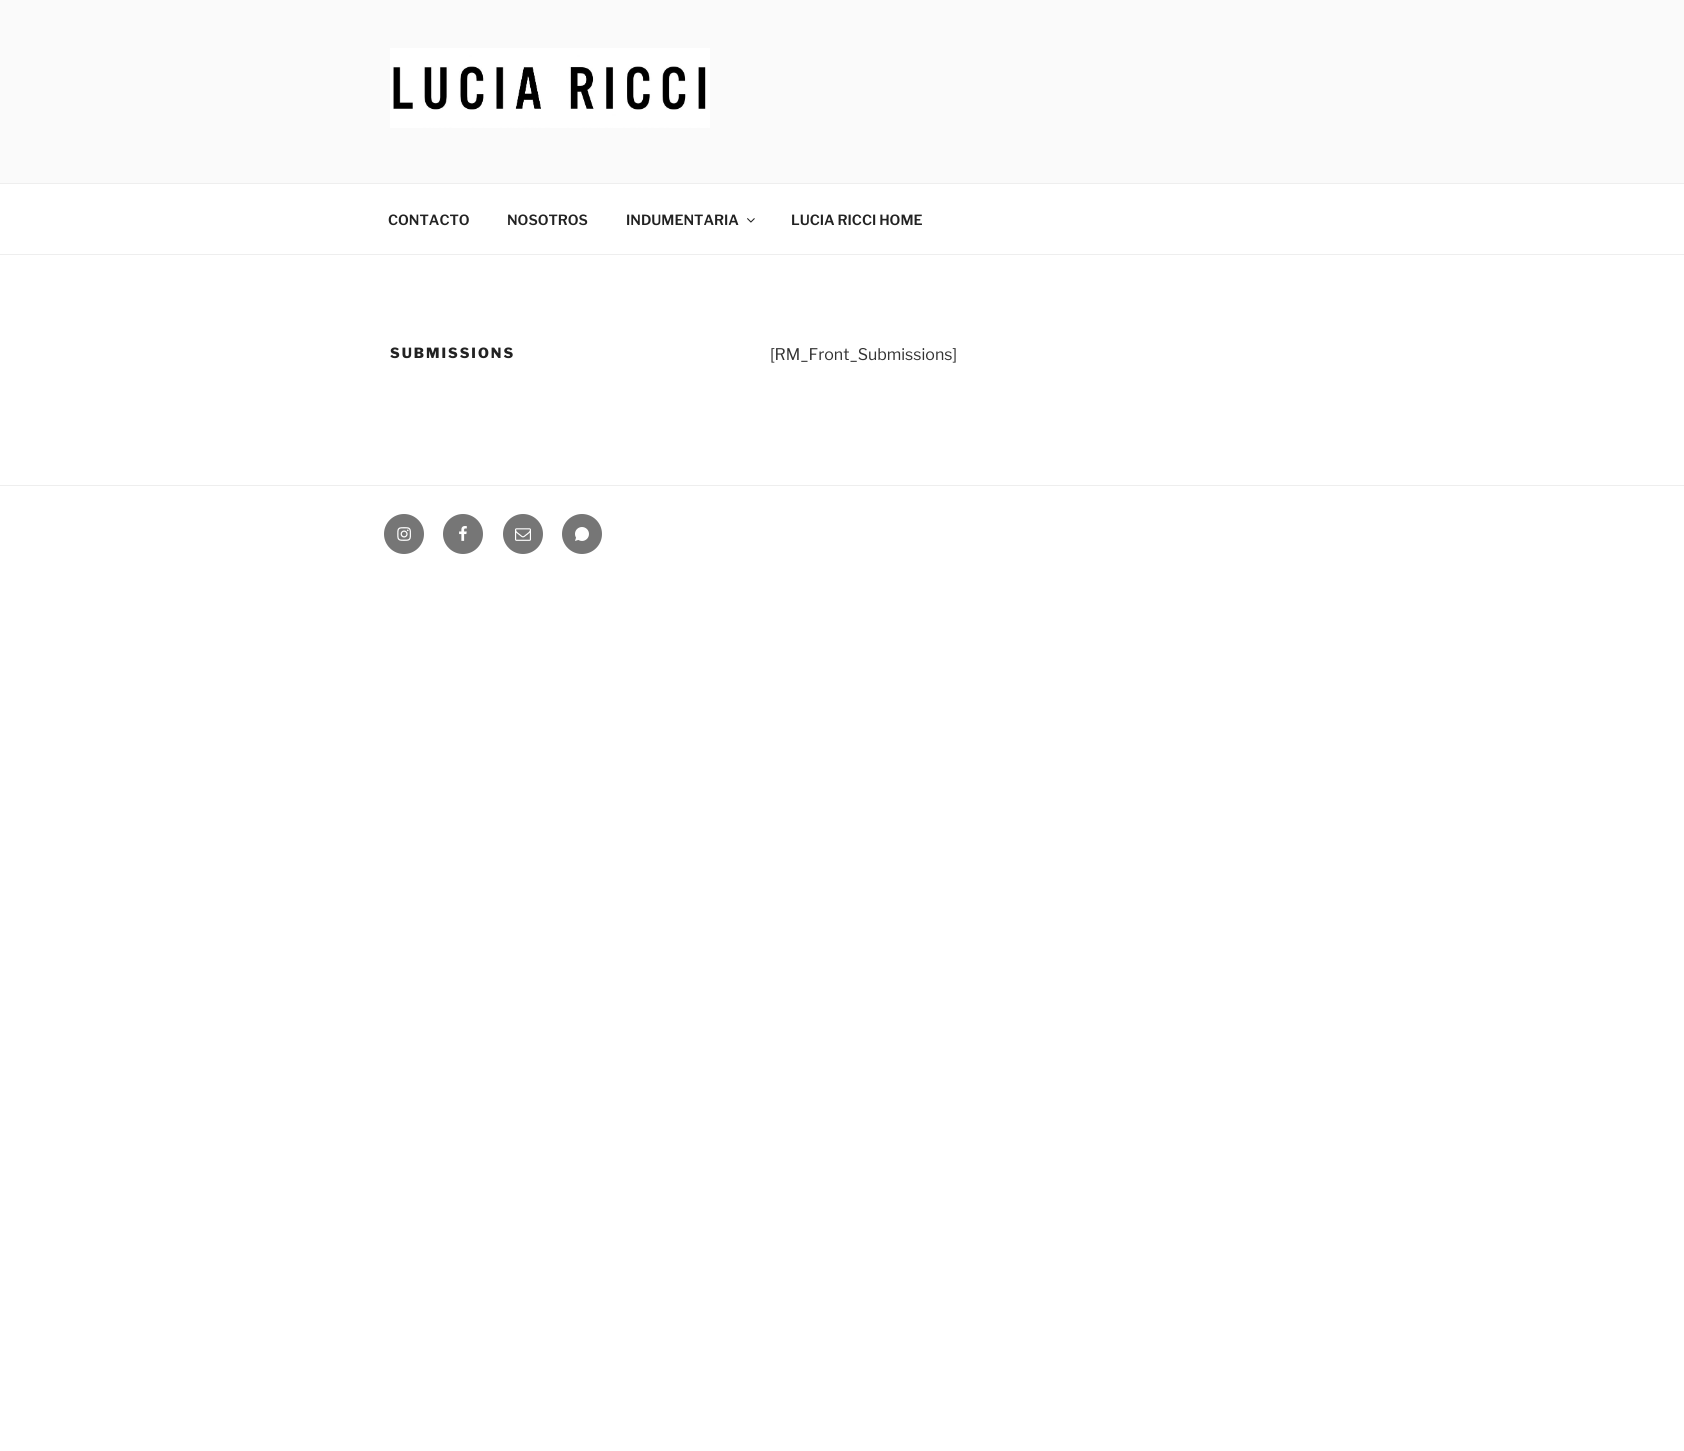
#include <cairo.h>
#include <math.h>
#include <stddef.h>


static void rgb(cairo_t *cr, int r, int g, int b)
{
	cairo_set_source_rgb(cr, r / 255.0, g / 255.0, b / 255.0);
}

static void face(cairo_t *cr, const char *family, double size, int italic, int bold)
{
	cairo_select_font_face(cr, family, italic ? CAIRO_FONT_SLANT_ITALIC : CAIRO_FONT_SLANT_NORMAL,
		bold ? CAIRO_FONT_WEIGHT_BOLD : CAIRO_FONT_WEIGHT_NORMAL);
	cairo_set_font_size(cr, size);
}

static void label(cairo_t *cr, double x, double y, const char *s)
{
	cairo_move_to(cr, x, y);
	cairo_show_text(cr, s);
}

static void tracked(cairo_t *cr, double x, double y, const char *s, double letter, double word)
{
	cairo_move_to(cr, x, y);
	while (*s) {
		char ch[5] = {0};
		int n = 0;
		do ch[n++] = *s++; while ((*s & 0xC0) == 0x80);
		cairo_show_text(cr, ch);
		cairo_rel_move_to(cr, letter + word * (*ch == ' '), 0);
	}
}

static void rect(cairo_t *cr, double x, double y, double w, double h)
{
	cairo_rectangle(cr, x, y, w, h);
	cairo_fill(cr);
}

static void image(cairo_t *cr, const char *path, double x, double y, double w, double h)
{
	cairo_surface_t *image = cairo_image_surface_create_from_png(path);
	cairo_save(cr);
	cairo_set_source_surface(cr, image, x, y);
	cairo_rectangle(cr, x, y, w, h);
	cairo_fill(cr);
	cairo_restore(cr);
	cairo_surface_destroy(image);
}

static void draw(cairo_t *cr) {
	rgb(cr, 255, 255, 255);
	cairo_paint(cr);
	rgb(cr, 250, 250, 250);
	rect(cr, 0, 0, 1684, 183);
	image(cr, "image0.png", 390, 48, 320, 80);
	rgb(cr, 238, 238, 238);
	rect(cr, 0, 183, 1684, 1);
	rect(cr, 0, 254, 1684, 1);
	face(cr, "Libre Franklin SemiBold", 14, 0, 0);
	rgb(cr, 34, 34, 34);
	label(cr, 388, 225, "CONTACTO");
	label(cr, 507, 225, "NOSOTROS");
	label(cr, 626, 225, "INDUMENTARIA");
	image(cr, "image1.png", 747, 218, 8, 5);
	label(cr, 791, 225, "LUCIA RICCI HOME");
	face(cr, "Libre Franklin ExtraBold", 14, 0, 0);
	tracked(cr, 390, 358, "SUBMISSIONS", 2, 0);
	face(cr, "Libre Franklin", 16, 0, 0);
	rgb(cr, 51, 51, 51);
	label(cr, 770, 360, "[RM_Front_Submissions]");
	rgb(cr, 238, 238, 238);
	rect(cr, 0, 485, 1684, 1);
	rgb(cr, 118, 118, 118);
	cairo_new_path(cr);
	cairo_arc(cr, 404, 534, 20, 0, 2 * M_PI);
	cairo_fill(cr);
	image(cr, "image2.png", 397, 527, 14, 14);
	cairo_arc(cr, 463, 534, 20, 0, 2 * M_PI);
	cairo_fill(cr);
	image(cr, "image3.png", 459, 526, 8, 15);
	cairo_arc(cr, 523, 534, 20, 0, 2 * M_PI);
	cairo_fill(cr);
	image(cr, "image4.png", 515, 528, 16, 13);
	cairo_arc(cr, 582, 534, 20, 0, 2 * M_PI);
	cairo_fill(cr);
	image(cr, "image5.png", 575, 527, 14, 14);
}

int main(void) {
	cairo_surface_t *surface = cairo_image_surface_create(CAIRO_FORMAT_RGB24, 1684, 1451);
	cairo_t *cr = cairo_create(surface);
	cairo_font_options_t *options = cairo_font_options_create();
	cairo_font_options_set_hint_metrics(options, CAIRO_HINT_METRICS_OFF);
	cairo_font_options_set_hint_style(options, CAIRO_HINT_STYLE_NONE);
	cairo_set_font_options(cr, options);
	cairo_set_miter_limit(cr, 4);
	draw(cr);
	cairo_surface_write_to_png(surface, "render.png");
	cairo_font_options_destroy(options);
	cairo_destroy(cr);
	cairo_surface_destroy(surface);
	return 0;
}
